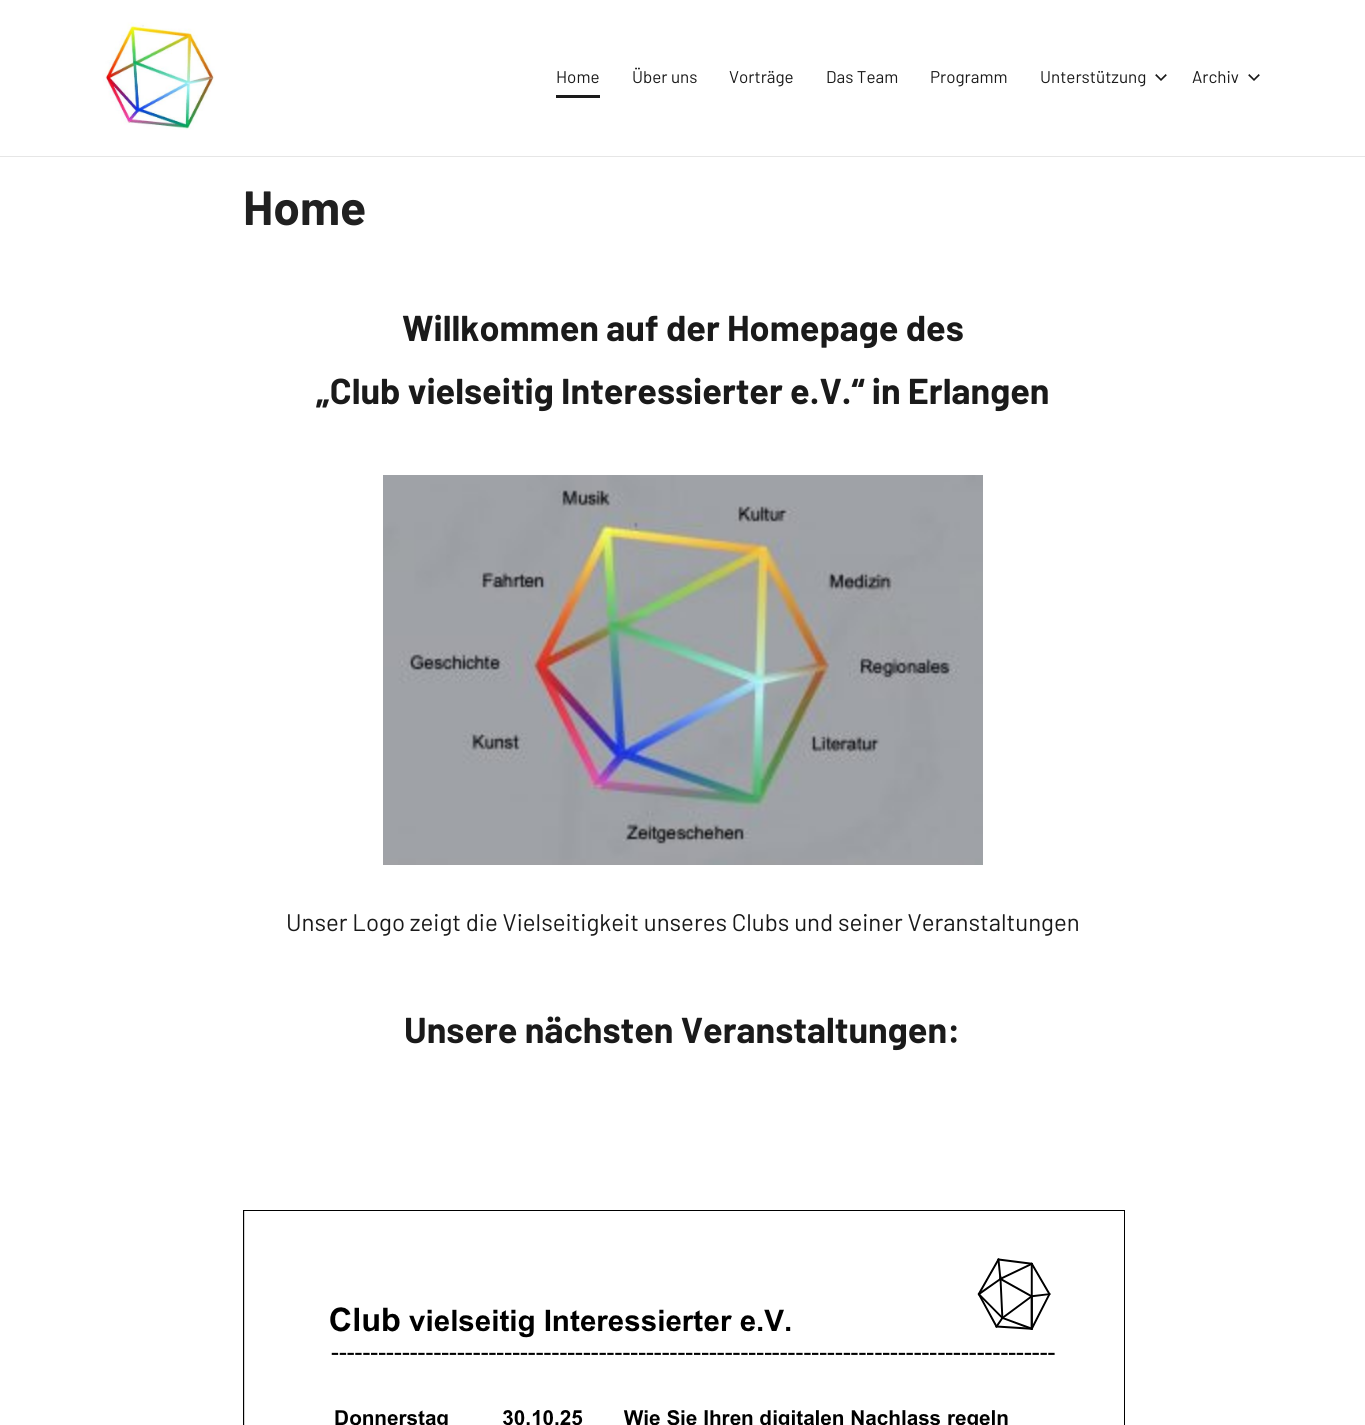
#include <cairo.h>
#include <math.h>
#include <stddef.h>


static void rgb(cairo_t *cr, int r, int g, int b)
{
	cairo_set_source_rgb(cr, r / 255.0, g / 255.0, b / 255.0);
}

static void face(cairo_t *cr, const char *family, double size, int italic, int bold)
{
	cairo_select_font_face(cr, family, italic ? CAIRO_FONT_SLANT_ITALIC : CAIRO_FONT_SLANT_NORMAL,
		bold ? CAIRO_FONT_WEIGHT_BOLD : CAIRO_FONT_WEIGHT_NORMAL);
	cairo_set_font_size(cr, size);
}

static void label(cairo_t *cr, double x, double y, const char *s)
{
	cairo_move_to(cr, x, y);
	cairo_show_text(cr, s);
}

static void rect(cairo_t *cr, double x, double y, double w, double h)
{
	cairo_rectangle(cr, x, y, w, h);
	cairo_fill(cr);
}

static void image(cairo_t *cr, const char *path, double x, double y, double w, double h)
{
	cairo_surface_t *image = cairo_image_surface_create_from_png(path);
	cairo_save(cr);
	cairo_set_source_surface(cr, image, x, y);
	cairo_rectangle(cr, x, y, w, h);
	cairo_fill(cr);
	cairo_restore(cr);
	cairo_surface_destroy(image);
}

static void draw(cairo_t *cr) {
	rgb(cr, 255, 255, 255);
	cairo_paint(cr);
	rgb(cr, 230, 230, 230);
	rect(cr, 0, 156, 1365, 1);
	image(cr, "image0.png", 102, 22, 113, 108);
	rgb(cr, 26, 26, 26);
	rect(cr, 556, 95, 44, 3);
	face(cr, "Barlow", 17, 0, 0);
	label(cr, 556, 83, "Home");
	label(cr, 632, 83, "Über uns");
	label(cr, 729, 83, "Vorträge");
	label(cr, 826, 83, "Das Team");
	label(cr, 930, 83, "Programm");
	label(cr, 1040, 83, "Unterstützung");
	image(cr, "image1.png", 1155, 74, 12, 7);
	label(cr, 1192, 83, "Archiv");
	image(cr, "image1.png", 1248, 74, 12, 7);
	face(cr, "Barlow", 48, 0, 1);
	rgb(cr, 32, 32, 32);
	label(cr, 243, 225, "Home");
	face(cr, "Barlow", 36, 0, 1);
	rgb(cr, 26, 26, 26);
	label(cr, 402, 341, "Willkommen auf der Homepage des");
	label(cr, 316, 404, "„Club vielseitig Interessierter e.V.“ in Erlangen");
	image(cr, "image2.png", 383, 475, 600, 390);
	face(cr, "Barlow", 24, 0, 0);
	label(cr, 286, 931, "Unser Logo zeigt die Vielseitigkeit unseres Clubs und seiner Veranstaltungen");
	face(cr, "Barlow", 36, 0, 1);
	label(cr, 404, 1043, "Unsere nächsten Veranstaltungen:");
	rgb(cr, 211, 211, 211);
	rect(cr, 244, 1211, 1, 214);
	cairo_rectangle(cr, 243.5, 1210.5, 881, 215);
	rgb(cr, 0, 0, 0);
	cairo_set_line_width(cr, 1);
	cairo_stroke(cr);
	image(cr, "image3.png", 330, 1258, 725, 167);
}

int main(void) {
	cairo_surface_t *surface = cairo_image_surface_create(CAIRO_FORMAT_RGB24, 1365, 1425);
	cairo_t *cr = cairo_create(surface);
	cairo_font_options_t *options = cairo_font_options_create();
	cairo_font_options_set_hint_metrics(options, CAIRO_HINT_METRICS_OFF);
	cairo_font_options_set_hint_style(options, CAIRO_HINT_STYLE_NONE);
	cairo_set_font_options(cr, options);
	cairo_set_miter_limit(cr, 4);
	draw(cr);
	cairo_surface_write_to_png(surface, "render.png");
	cairo_font_options_destroy(options);
	cairo_destroy(cr);
	cairo_surface_destroy(surface);
	return 0;
}
